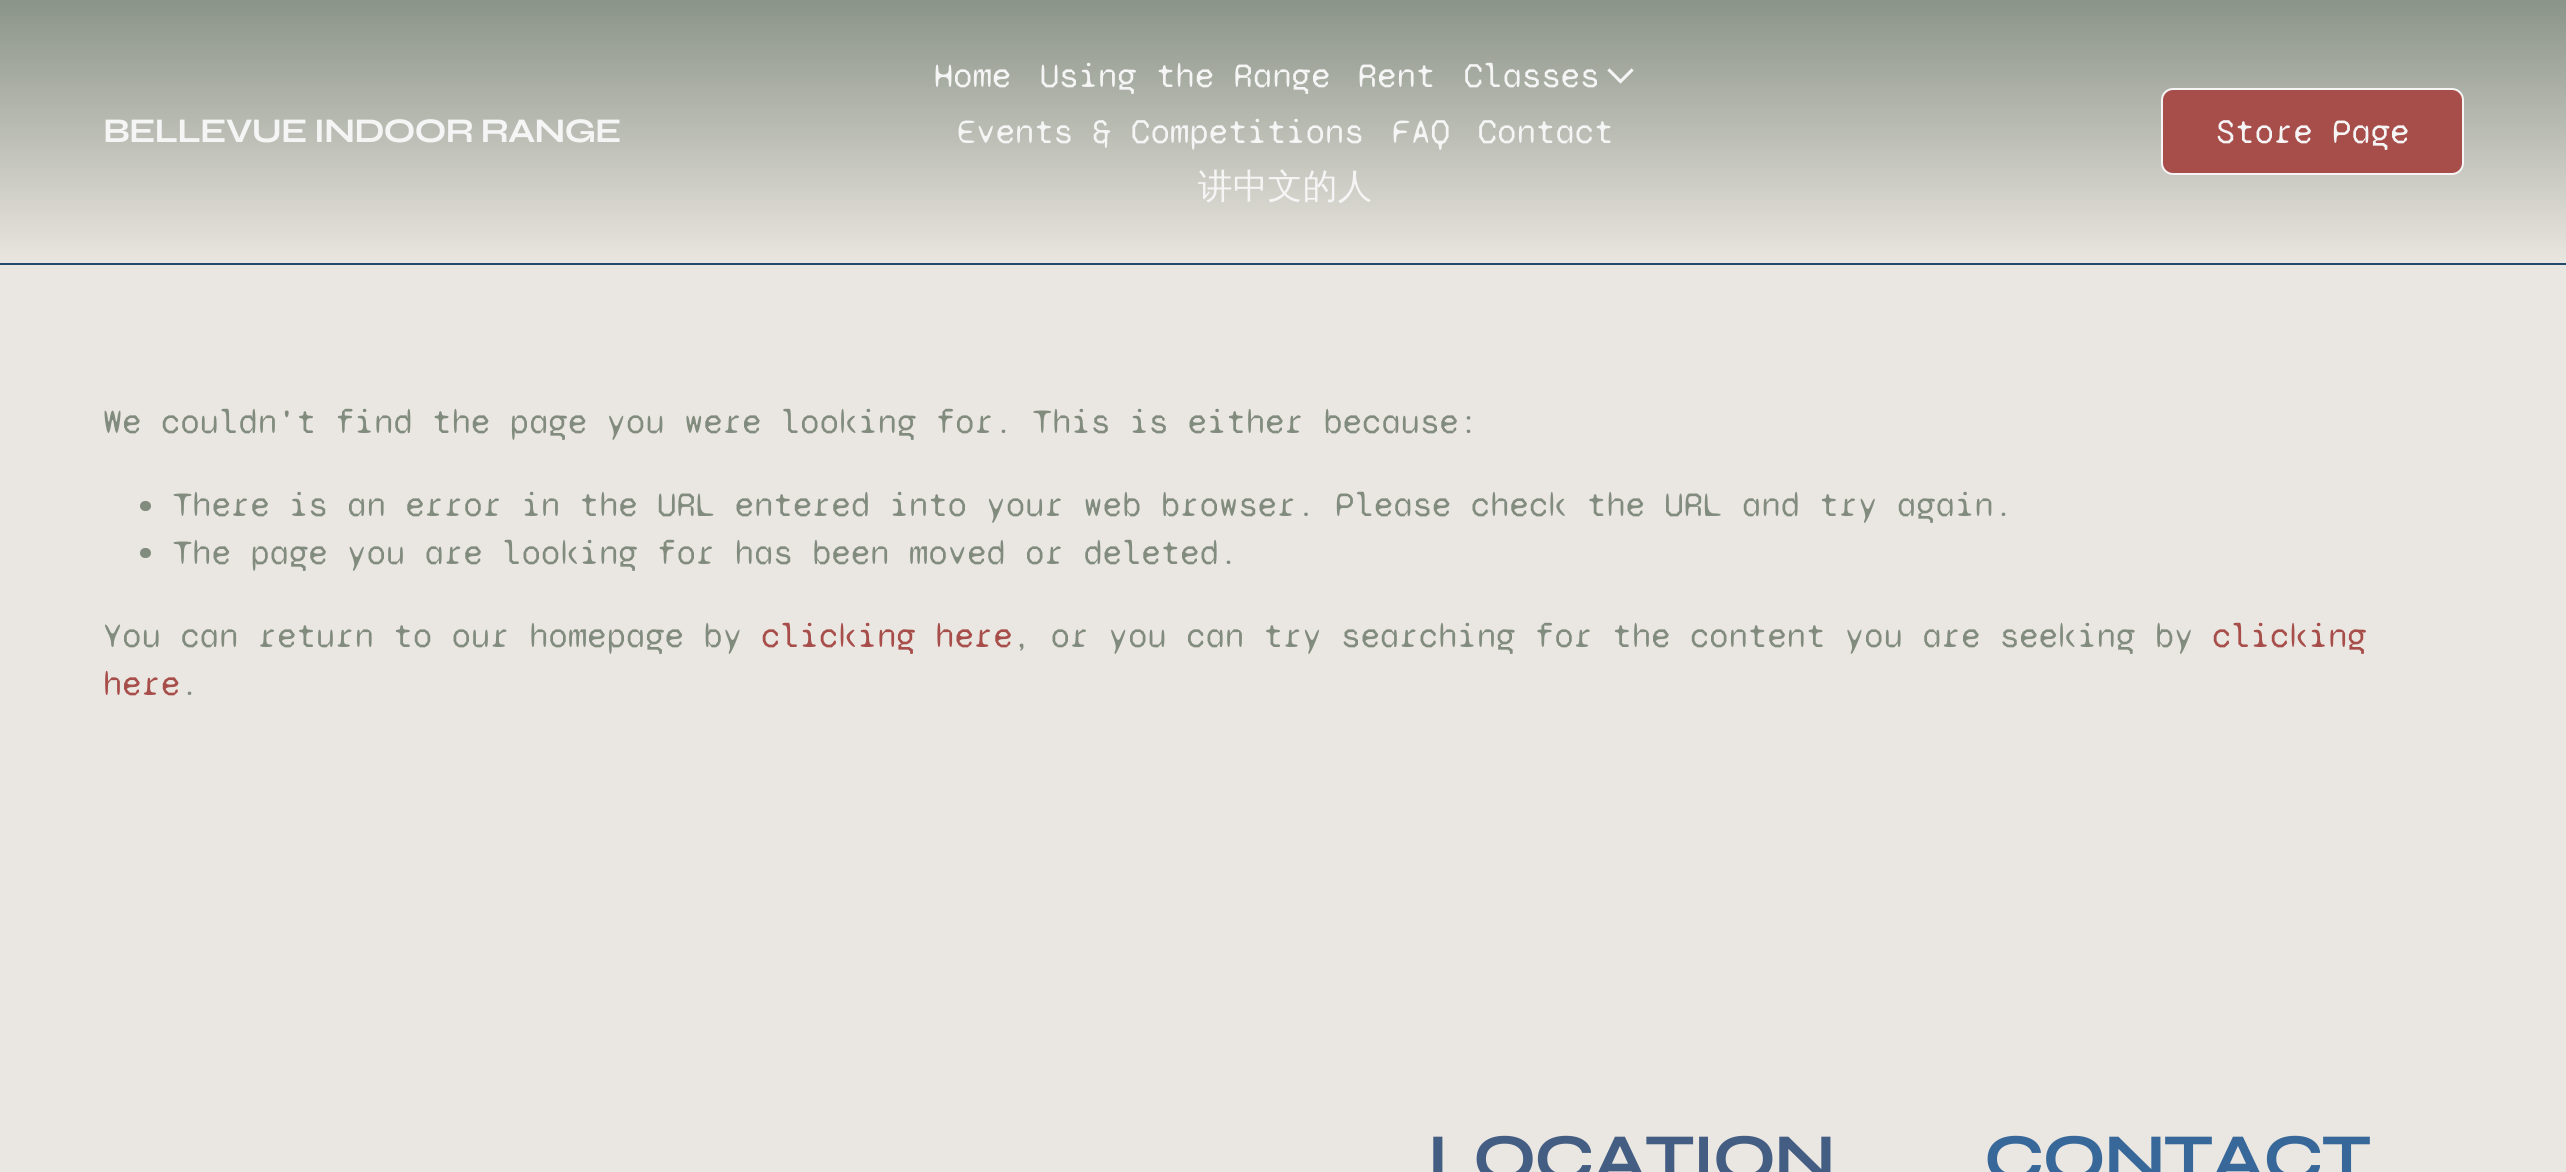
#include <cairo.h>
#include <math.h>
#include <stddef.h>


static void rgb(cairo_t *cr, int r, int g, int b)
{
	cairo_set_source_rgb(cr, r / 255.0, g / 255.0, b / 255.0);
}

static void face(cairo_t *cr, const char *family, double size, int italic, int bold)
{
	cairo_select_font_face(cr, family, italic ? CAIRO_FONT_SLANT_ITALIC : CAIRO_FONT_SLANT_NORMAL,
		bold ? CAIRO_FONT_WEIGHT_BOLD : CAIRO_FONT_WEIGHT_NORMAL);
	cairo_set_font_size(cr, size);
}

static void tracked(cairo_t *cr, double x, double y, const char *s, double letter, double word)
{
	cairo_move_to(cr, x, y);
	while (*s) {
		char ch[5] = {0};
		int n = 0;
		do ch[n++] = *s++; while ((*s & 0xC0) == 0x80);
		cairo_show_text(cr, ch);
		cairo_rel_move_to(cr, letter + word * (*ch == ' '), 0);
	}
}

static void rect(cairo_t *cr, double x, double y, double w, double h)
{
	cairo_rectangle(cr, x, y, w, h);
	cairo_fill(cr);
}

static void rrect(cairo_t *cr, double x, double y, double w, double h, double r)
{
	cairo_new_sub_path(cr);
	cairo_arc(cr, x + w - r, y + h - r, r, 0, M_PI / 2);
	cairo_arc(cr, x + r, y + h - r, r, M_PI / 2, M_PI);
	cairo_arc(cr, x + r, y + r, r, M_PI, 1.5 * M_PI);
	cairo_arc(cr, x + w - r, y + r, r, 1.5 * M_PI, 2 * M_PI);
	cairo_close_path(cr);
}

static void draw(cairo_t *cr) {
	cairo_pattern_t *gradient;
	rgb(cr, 234, 230, 225);
	cairo_paint(cr);
	gradient = cairo_pattern_create_linear(1284, 0, 1284, 264);
	cairo_pattern_add_color_stop_rgba(gradient, 0, 0.545, 0.58, 0.533, 1);
	cairo_pattern_add_color_stop_rgba(gradient, 1, 0.918, 0.902, 0.878, 1);
	cairo_set_source(cr, gradient);
	cairo_pattern_destroy(gradient);
	rect(cr, 0, 0, 2566, 260);
	face(cr, "Syne", 34.58, 0, 1);
	rgb(cr, 245, 245, 245);
	tracked(cr, 103, 142, "BELLEVUE INDOOR RANGE", -1, 0);
	face(cr, "Syne Mono", 34.58, 0, 0);
	tracked(cr, 934, 87, "Home", 0.35, 0);
	tracked(cr, 1040, 87, "Using the Range", 0.35, 0);
	tracked(cr, 1358, 87, "Rent", 0.35, 0);
	tracked(cr, 1464, 87, "Classes", 0.35, 0);
	cairo_new_path(cr);
	cairo_move_to(cr, 1631.5, 70.5);
	cairo_line_to(cr, 1620.5, 81.5);
	cairo_line_to(cr, 1609.5, 70.5);
	cairo_set_line_width(cr, 3.1);
	cairo_set_line_cap(cr, CAIRO_LINE_CAP_SQUARE);
	cairo_stroke(cr);
	tracked(cr, 957, 143, "Events & Competitions", 0.35, 0);
	tracked(cr, 1392, 143, "FAQ", 0.35, 0);
	tracked(cr, 1478, 143, "Contact", 0.35, 0);
	face(cr, "WenQuanYi Zen Hei Medium", 34.58, 0, 0);
	tracked(cr, 1198, 198, "讲中文的人", 0.35, 0);
	rgb(cr, 167, 77, 74);
	rrect(cr, 2162, 89, 301, 85, 11);
	cairo_fill_preserve(cr);
	rgb(cr, 245, 245, 245);
	cairo_set_line_width(cr, 2);
	cairo_set_line_cap(cr, CAIRO_LINE_CAP_BUTT);
	cairo_stroke(cr);
	face(cr, "Syne Mono", 34.58, 0, 0);
	tracked(cr, 2216, 143, "Store Page", 0.35, 0);
	rgb(cr, 36, 74, 107);
	rect(cr, 0, 263, 2566, 2);
	rgb(cr, 129, 139, 126);
	tracked(cr, 103, 433, "We couldn't find the page you were looking for. This is either because:", 0.35, 0);
	rrect(cr, 140, 501, 11, 10, 5);
	cairo_fill(cr);
	tracked(cr, 173, 516, "There is an error in the URL entered into your web browser. Please check the URL and try again.", 0.35, 0);
	rrect(cr, 140, 548, 11, 10, 5);
	cairo_fill(cr);
	tracked(cr, 173, 564, "The page you are looking for has been moved or deleted.", 0.35, 0);
	tracked(cr, 103, 647, "You can return to our homepage by", 0.35, 0);
	rgb(cr, 167, 77, 74);
	tracked(cr, 761, 647, "clicking here", 0.35, 0);
	rgb(cr, 129, 139, 126);
	tracked(cr, 1012, 647, ", or you can try searching for the", 0.35, 0);
	tracked(cr, 1690, 647, "content you are seeking by", 0.35, 0);
	rgb(cr, 167, 77, 74);
	tracked(cr, 2212, 647, "clicking", 0.35, 0);
	tracked(cr, 103, 695, "here", 0.35, 0);
	rgb(cr, 129, 139, 126);
	tracked(cr, 180, 695, ".", 0.35, 0);
	face(cr, "Syne", 68.5, 0, 1);
	rgb(cr, 68, 94, 131);
	tracked(cr, 1428, 1181, "LOCATION", -2, 0);
	rgb(cr, 55, 104, 153);
	tracked(cr, 1984, 1181, "CONTACT", -2, 0);
}

int main(void) {
	cairo_surface_t *surface = cairo_image_surface_create(CAIRO_FORMAT_RGB24, 2566, 1172);
	cairo_t *cr = cairo_create(surface);
	cairo_font_options_t *options = cairo_font_options_create();
	cairo_font_options_set_hint_metrics(options, CAIRO_HINT_METRICS_OFF);
	cairo_font_options_set_hint_style(options, CAIRO_HINT_STYLE_NONE);
	cairo_set_font_options(cr, options);
	cairo_set_miter_limit(cr, 4);
	draw(cr);
	cairo_surface_write_to_png(surface, "render.png");
	cairo_font_options_destroy(options);
	cairo_destroy(cr);
	cairo_surface_destroy(surface);
	return 0;
}
